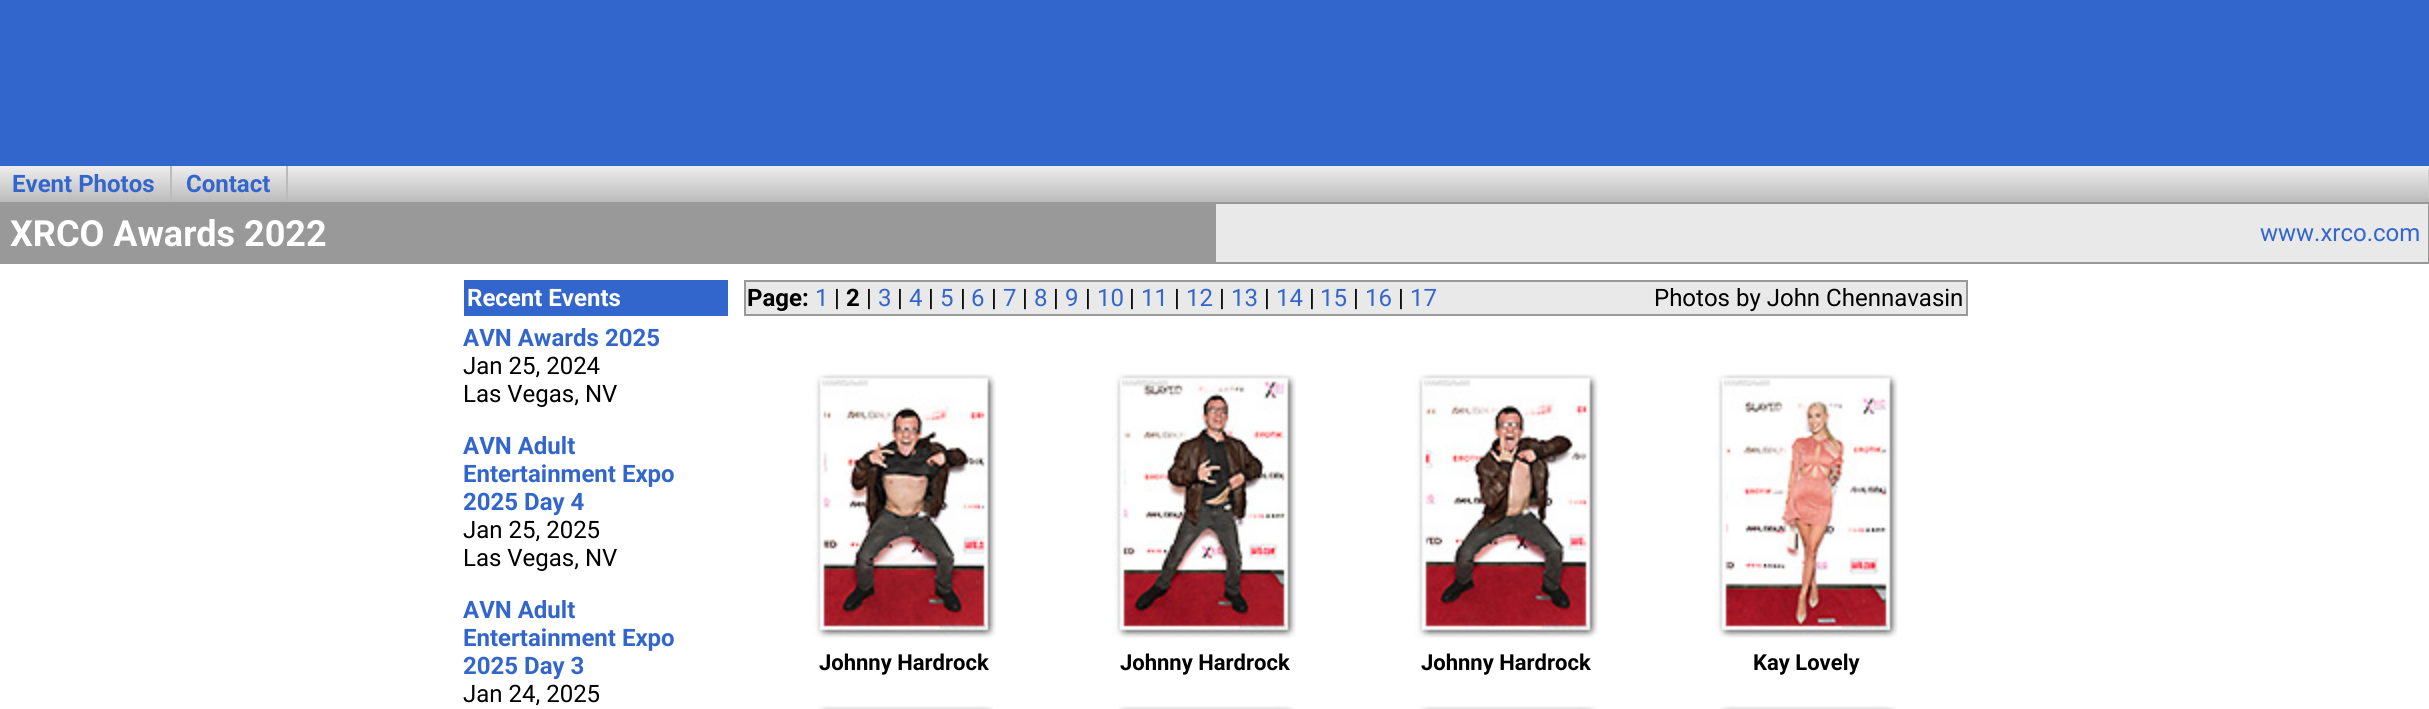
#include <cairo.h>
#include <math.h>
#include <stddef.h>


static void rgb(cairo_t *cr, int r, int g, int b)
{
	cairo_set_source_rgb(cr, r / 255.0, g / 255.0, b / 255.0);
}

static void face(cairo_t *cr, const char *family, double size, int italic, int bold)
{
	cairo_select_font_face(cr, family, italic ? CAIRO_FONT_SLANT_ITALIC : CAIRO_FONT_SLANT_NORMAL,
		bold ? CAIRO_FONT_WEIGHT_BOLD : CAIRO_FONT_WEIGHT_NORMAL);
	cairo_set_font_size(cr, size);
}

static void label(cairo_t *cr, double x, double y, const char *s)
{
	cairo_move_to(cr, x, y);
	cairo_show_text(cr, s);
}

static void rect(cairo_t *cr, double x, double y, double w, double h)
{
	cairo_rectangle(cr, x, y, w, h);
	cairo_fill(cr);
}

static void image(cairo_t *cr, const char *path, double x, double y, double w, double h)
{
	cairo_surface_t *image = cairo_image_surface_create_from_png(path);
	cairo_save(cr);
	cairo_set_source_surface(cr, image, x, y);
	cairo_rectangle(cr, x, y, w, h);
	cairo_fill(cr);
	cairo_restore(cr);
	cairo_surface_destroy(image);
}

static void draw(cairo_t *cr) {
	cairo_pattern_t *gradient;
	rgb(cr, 255, 255, 255);
	cairo_paint(cr);
	rgb(cr, 51, 102, 204);
	rect(cr, 0, 0, 2429, 166);
	gradient = cairo_pattern_create_linear(1215, 166, 1215, 202);
	cairo_pattern_add_color_stop_rgba(gradient, 0, 0.933, 0.933, 0.933, 1);
	cairo_pattern_add_color_stop_rgba(gradient, 1, 0.733, 0.733, 0.733, 1);
	cairo_set_source(cr, gradient);
	cairo_pattern_destroy(gradient);
	rect(cr, 0, 166, 2429, 36);
	rgb(cr, 204, 204, 204);
	rect(cr, 2428, 170, 1, 28);
	face(cr, "Roboto", 24, 0, 1);
	rgb(cr, 51, 102, 204);
	label(cr, 12, 192, "Event Photos");
	rgb(cr, 187, 187, 187);
	rect(cr, 170, 166, 2, 36);
	rgb(cr, 51, 102, 204);
	label(cr, 186, 192, "Contact");
	rgb(cr, 187, 187, 187);
	rect(cr, 286, 166, 2, 36);
	rgb(cr, 153, 153, 153);
	rect(cr, 0, 202, 2429, 62);
	face(cr, "Roboto", 36, 0, 1);
	rgb(cr, 255, 255, 255);
	label(cr, 10, 246, "XRCO Awards 2022");
	rgb(cr, 233, 233, 233);
	rect(cr, 1216, 204, 1212, 58);
	face(cr, "Roboto", 24, 0, 0);
	rgb(cr, 51, 102, 204);
	label(cr, 2260, 241, "www.xrco.com");
	rect(cr, 464, 280, 264, 36);
	face(cr, "Roboto", 24, 0, 1);
	rgb(cr, 255, 255, 255);
	label(cr, 467, 306, "Recent Events");
	rgb(cr, 51, 102, 204);
	label(cr, 463, 346, "AVN Awards 2025");
	face(cr, "Roboto", 24, 0, 0);
	rgb(cr, 0, 0, 0);
	label(cr, 463, 374, "Jan 25, 2024");
	label(cr, 463, 402, "Las Vegas, NV");
	face(cr, "Roboto", 24, 0, 1);
	rgb(cr, 51, 102, 204);
	label(cr, 463, 454, "AVN Adult");
	label(cr, 463, 482, "Entertainment Expo");
	label(cr, 463, 510, "2025 Day 4");
	face(cr, "Roboto", 24, 0, 0);
	rgb(cr, 0, 0, 0);
	label(cr, 463, 538, "Jan 25, 2025");
	label(cr, 463, 566, "Las Vegas, NV");
	face(cr, "Roboto", 24, 0, 1);
	rgb(cr, 51, 102, 204);
	label(cr, 463, 618, "AVN Adult");
	label(cr, 463, 646, "Entertainment Expo");
	label(cr, 463, 674, "2025 Day 3");
	face(cr, "Roboto", 24, 0, 0);
	rgb(cr, 0, 0, 0);
	label(cr, 463, 702, "Jan 24, 2025");
	cairo_rectangle(cr, 745, 281, 1222, 34);
	rgb(cr, 153, 153, 153);
	cairo_stroke(cr);
	rgb(cr, 233, 233, 233);
	rect(cr, 746, 282, 1220, 32);
	face(cr, "Roboto", 24, 0, 1);
	rgb(cr, 0, 0, 0);
	label(cr, 747, 306, "Page:");
	face(cr, "Roboto", 24, 0, 0);
	rgb(cr, 51, 102, 204);
	label(cr, 815, 306, "1");
	rgb(cr, 0, 0, 0);
	label(cr, 834, 306, "|");
	face(cr, "Roboto", 24, 0, 1);
	label(cr, 846, 306, "2");
	face(cr, "Roboto", 24, 0, 0);
	label(cr, 866, 306, "|");
	rgb(cr, 51, 102, 204);
	label(cr, 878, 306, "3");
	rgb(cr, 0, 0, 0);
	label(cr, 897, 306, "|");
	rgb(cr, 51, 102, 204);
	label(cr, 909, 306, "4");
	rgb(cr, 0, 0, 0);
	label(cr, 928, 306, "|");
	rgb(cr, 51, 102, 204);
	label(cr, 940, 306, "5");
	rgb(cr, 0, 0, 0);
	label(cr, 960, 306, "|");
	rgb(cr, 51, 102, 204);
	label(cr, 971, 306, "6");
	rgb(cr, 0, 0, 0);
	label(cr, 991, 306, "|");
	rgb(cr, 51, 102, 204);
	label(cr, 1003, 306, "7");
	rgb(cr, 0, 0, 0);
	label(cr, 1022, 306, "|");
	rgb(cr, 51, 102, 204);
	label(cr, 1034, 306, "8");
	rgb(cr, 0, 0, 0);
	label(cr, 1053, 306, "|");
	rgb(cr, 51, 102, 204);
	label(cr, 1065, 306, "9");
	rgb(cr, 0, 0, 0);
	label(cr, 1085, 306, "|");
	rgb(cr, 51, 102, 204);
	label(cr, 1097, 306, "10");
	rgb(cr, 0, 0, 0);
	label(cr, 1129, 306, "|");
	rgb(cr, 51, 102, 204);
	label(cr, 1141, 306, "11");
	rgb(cr, 0, 0, 0);
	label(cr, 1174, 306, "|");
	rgb(cr, 51, 102, 204);
	label(cr, 1186, 306, "12");
	rgb(cr, 0, 0, 0);
	label(cr, 1219, 306, "|");
	rgb(cr, 51, 102, 204);
	label(cr, 1231, 306, "13");
	rgb(cr, 0, 0, 0);
	label(cr, 1264, 306, "|");
	rgb(cr, 51, 102, 204);
	label(cr, 1276, 306, "14");
	rgb(cr, 0, 0, 0);
	label(cr, 1309, 306, "|");
	rgb(cr, 51, 102, 204);
	label(cr, 1320, 306, "15");
	rgb(cr, 0, 0, 0);
	label(cr, 1353, 306, "|");
	rgb(cr, 51, 102, 204);
	label(cr, 1365, 306, "16");
	rgb(cr, 0, 0, 0);
	label(cr, 1398, 306, "|");
	rgb(cr, 51, 102, 204);
	label(cr, 1410, 306, "17");
	rgb(cr, 0, 0, 0);
	label(cr, 1654, 306, "Photos by John Chennavasin");
	image(cr, "image0.png", 812, 374, 184, 264);
	face(cr, "Roboto", 22, 0, 1);
	label(cr, 819, 670, "Johnny Hardrock");
	image(cr, "image1.png", 1112, 374, 184, 264);
	label(cr, 1120, 670, "Johnny Hardrock");
	image(cr, "image2.png", 1414, 374, 184, 264);
	label(cr, 1421, 670, "Johnny Hardrock");
	image(cr, "image3.png", 1714, 374, 184, 264);
	label(cr, 1753, 670, "Kay Lovely");
	image(cr, "image4.png", 818, 706, 176, 3);
	image(cr, "image4.png", 1118, 706, 176, 3);
	image(cr, "image4.png", 1420, 706, 176, 3);
	image(cr, "image4.png", 1720, 706, 176, 3);
}

int main(void) {
	cairo_surface_t *surface = cairo_image_surface_create(CAIRO_FORMAT_RGB24, 2429, 709);
	cairo_t *cr = cairo_create(surface);
	cairo_font_options_t *options = cairo_font_options_create();
	cairo_font_options_set_hint_metrics(options, CAIRO_HINT_METRICS_OFF);
	cairo_font_options_set_hint_style(options, CAIRO_HINT_STYLE_NONE);
	cairo_set_font_options(cr, options);
	cairo_set_miter_limit(cr, 4);
	draw(cr);
	cairo_surface_write_to_png(surface, "render.png");
	cairo_font_options_destroy(options);
	cairo_destroy(cr);
	cairo_surface_destroy(surface);
	return 0;
}
